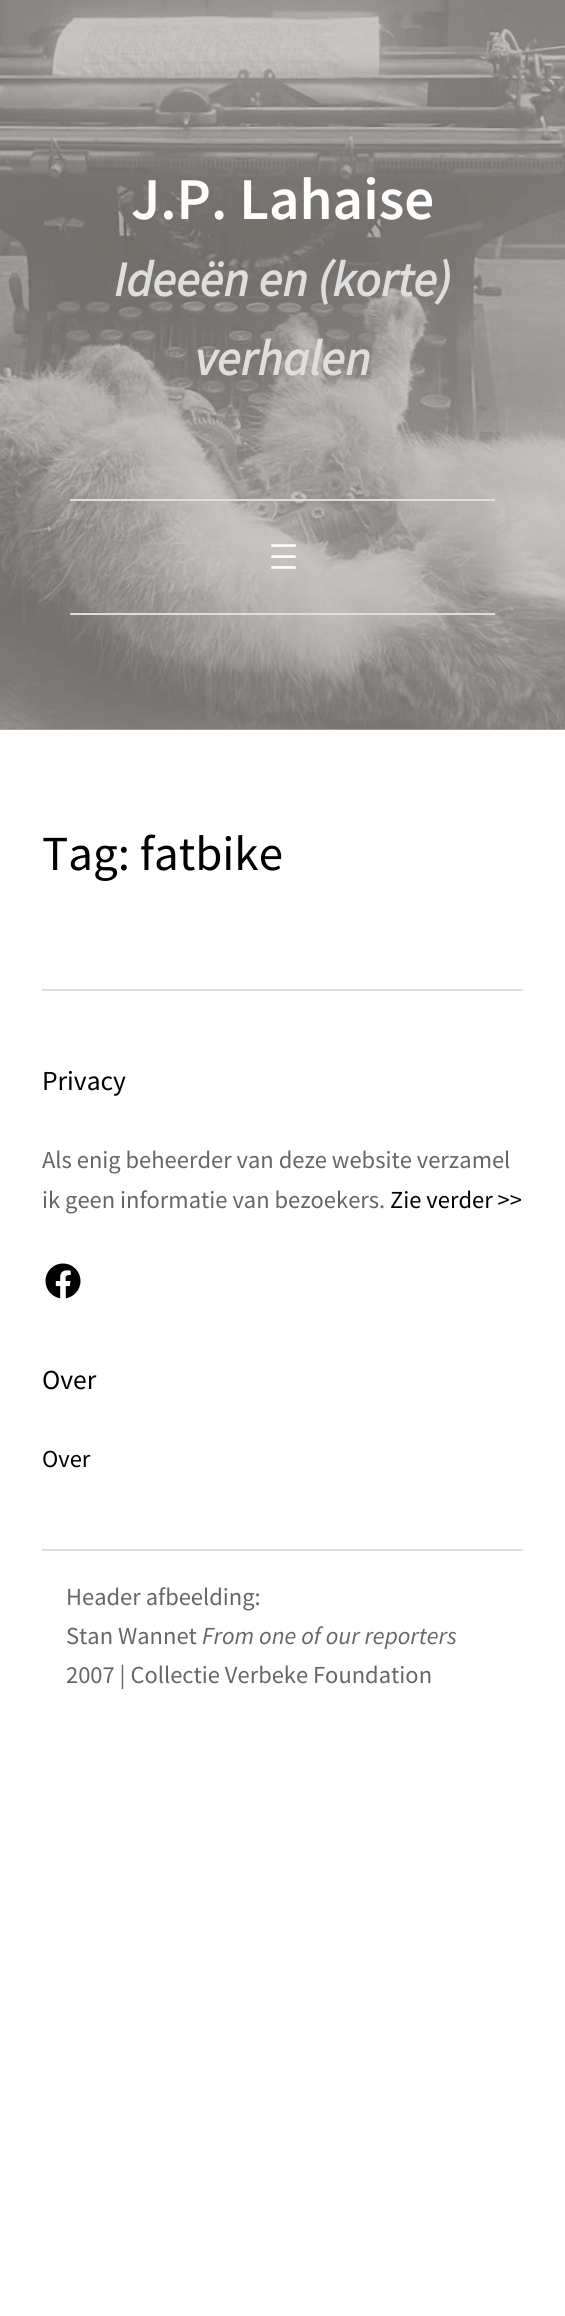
#include <cairo.h>
#include <math.h>
#include <stddef.h>


static void rgb(cairo_t *cr, int r, int g, int b)
{
	cairo_set_source_rgb(cr, r / 255.0, g / 255.0, b / 255.0);
}

static void face(cairo_t *cr, const char *family, double size, int italic, int bold)
{
	cairo_select_font_face(cr, family, italic ? CAIRO_FONT_SLANT_ITALIC : CAIRO_FONT_SLANT_NORMAL,
		bold ? CAIRO_FONT_WEIGHT_BOLD : CAIRO_FONT_WEIGHT_NORMAL);
	cairo_set_font_size(cr, size);
}

static void label(cairo_t *cr, double x, double y, const char *s)
{
	cairo_move_to(cr, x, y);
	cairo_show_text(cr, s);
}

static void rect(cairo_t *cr, double x, double y, double w, double h)
{
	cairo_rectangle(cr, x, y, w, h);
	cairo_fill(cr);
}

static void image(cairo_t *cr, const char *path, double x, double y, double w, double h)
{
	cairo_surface_t *image = cairo_image_surface_create_from_png(path);
	cairo_save(cr);
	cairo_set_source_surface(cr, image, x, y);
	cairo_rectangle(cr, x, y, w, h);
	cairo_fill(cr);
	cairo_restore(cr);
	cairo_surface_destroy(image);
}

static void draw(cairo_t *cr) {
	rgb(cr, 255, 255, 255);
	cairo_paint(cr);
	rgb(cr, 202, 198, 195);
	rect(cr, 0, 729, 565, 1);
	image(cr, "image0.png", 0, 0, 565, 730);
	face(cr, "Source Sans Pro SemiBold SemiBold", 59.25, 0, 0);
	rgb(cr, 255, 255, 255);
	label(cr, 131, 219, "J.P. Lahaise");
	face(cr, "Source Sans Pro", 49, 1, 1);
	rgb(cr, 222, 222, 222);
	label(cr, 114, 296, "Ideeën en (korte)");
	label(cr, 195, 375, "verhalen");
	rect(cr, 70, 499, 425, 2);
	rect(cr, 70, 613, 425, 2);
	image(cr, "image1.png", 271, 544, 25, 25);
	face(cr, "Source Sans Pro", 49, 0, 0);
	rgb(cr, 0, 0, 0);
	label(cr, 42, 870, "Tag: fatbike");
	rgb(cr, 222, 222, 222);
	rect(cr, 42, 989, 481, 2);
	face(cr, "Source Sans Pro", 27.5, 0, 0);
	rgb(cr, 0, 0, 0);
	label(cr, 42, 1090, "Privacy");
	face(cr, "Source Sans Pro", 24.5, 0, 0);
	rgb(cr, 102, 102, 102);
	label(cr, 42, 1168, "Als enig beheerder van deze website verzamel");
	label(cr, 42, 1208, "ik geen informatie van bezoekers.");
	rgb(cr, 0, 0, 0);
	label(cr, 390, 1208, "Zie verder >>");
	image(cr, "image2.png", 45, 1263, 36, 36);
	face(cr, "Source Sans Pro", 27.5, 0, 0);
	label(cr, 42, 1389, "Over");
	face(cr, "Source Sans Pro", 24.5, 0, 0);
	label(cr, 42, 1467, "Over");
	rgb(cr, 222, 222, 222);
	rect(cr, 42, 1549, 481, 2);
	rgb(cr, 102, 102, 102);
	label(cr, 66, 1605, "Header afbeelding:");
	label(cr, 66, 1644, "Stan Wannet");
	face(cr, "Source Sans Pro", 24.5, 1, 0);
	label(cr, 202, 1644, "From one of our reporters");
	face(cr, "Source Sans Pro", 24.5, 0, 0);
	label(cr, 66, 1683, "2007 | Collectie Verbeke Foundation");
}

int main(void) {
	cairo_surface_t *surface = cairo_image_surface_create(CAIRO_FORMAT_RGB24, 565, 2316);
	cairo_t *cr = cairo_create(surface);
	cairo_font_options_t *options = cairo_font_options_create();
	cairo_font_options_set_hint_metrics(options, CAIRO_HINT_METRICS_OFF);
	cairo_font_options_set_hint_style(options, CAIRO_HINT_STYLE_NONE);
	cairo_set_font_options(cr, options);
	cairo_set_miter_limit(cr, 4);
	draw(cr);
	cairo_surface_write_to_png(surface, "render.png");
	cairo_font_options_destroy(options);
	cairo_destroy(cr);
	cairo_surface_destroy(surface);
	return 0;
}
